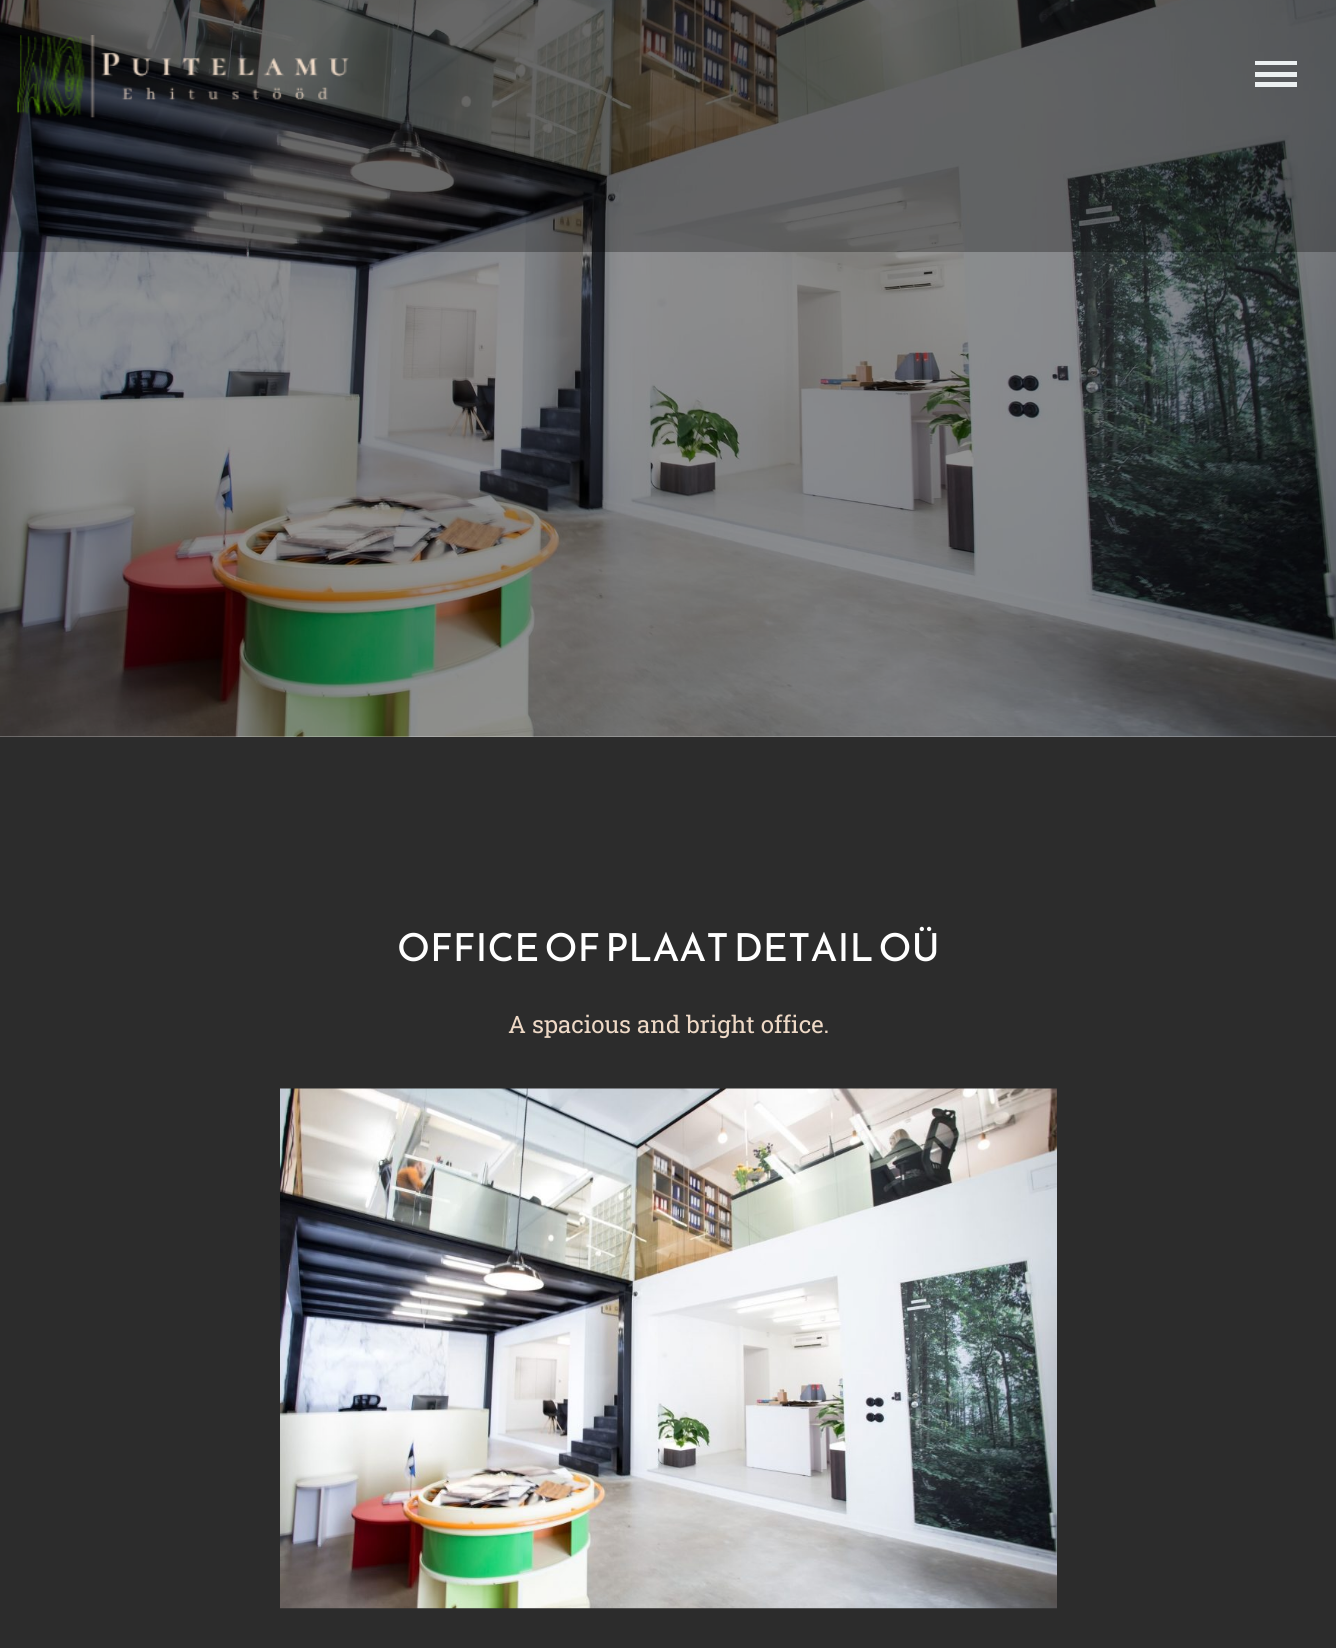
#include <cairo.h>
#include <math.h>
#include <stddef.h>


static void rgb(cairo_t *cr, int r, int g, int b)
{
	cairo_set_source_rgb(cr, r / 255.0, g / 255.0, b / 255.0);
}

static void face(cairo_t *cr, const char *family, double size, int italic, int bold)
{
	cairo_select_font_face(cr, family, italic ? CAIRO_FONT_SLANT_ITALIC : CAIRO_FONT_SLANT_NORMAL,
		bold ? CAIRO_FONT_WEIGHT_BOLD : CAIRO_FONT_WEIGHT_NORMAL);
	cairo_set_font_size(cr, size);
}

static void label(cairo_t *cr, double x, double y, const char *s)
{
	cairo_move_to(cr, x, y);
	cairo_show_text(cr, s);
}

static void rect(cairo_t *cr, double x, double y, double w, double h)
{
	cairo_rectangle(cr, x, y, w, h);
	cairo_fill(cr);
}

static void image(cairo_t *cr, const char *path, double x, double y, double w, double h)
{
	cairo_surface_t *image = cairo_image_surface_create_from_png(path);
	cairo_save(cr);
	cairo_set_source_surface(cr, image, x, y);
	cairo_rectangle(cr, x, y, w, h);
	cairo_fill(cr);
	cairo_restore(cr);
	cairo_surface_destroy(image);
}

static void draw(cairo_t *cr) {
	rgb(cr, 255, 255, 255);
	cairo_paint(cr);
	image(cr, "image1.png", 0, 0, 1336, 737);
	cairo_set_source_rgba(cr, 0, 0, 0, 0.29);
	rect(cr, 0, 0, 1336, 252);
	image(cr, "image0.png", 17, 35, 332, 83);
	rgb(cr, 236, 240, 241);
	rect(cr, 1255, 61, 42, 4);
	rect(cr, 1255, 72, 42, 5);
	rect(cr, 1255, 82, 42, 5);
	rgb(cr, 44, 44, 44);
	rect(cr, 0, 737, 1336, 911);
	face(cr, "Reem Kufi", 38.5, 0, 0);
	rgb(cr, 255, 255, 255);
	label(cr, 397, 961, "OFFICE OF PLAAT DETAIL OÜ");
	face(cr, "Roboto Slab", 24, 0, 0);
	rgb(cr, 238, 217, 198);
	label(cr, 508, 1033, "A spacious and bright office.");
	image(cr, "image2.png", 280, 1088, 777, 521);
}

int main(void) {
	cairo_surface_t *surface = cairo_image_surface_create(CAIRO_FORMAT_RGB24, 1336, 1648);
	cairo_t *cr = cairo_create(surface);
	cairo_font_options_t *options = cairo_font_options_create();
	cairo_font_options_set_hint_metrics(options, CAIRO_HINT_METRICS_OFF);
	cairo_font_options_set_hint_style(options, CAIRO_HINT_STYLE_NONE);
	cairo_set_font_options(cr, options);
	cairo_set_miter_limit(cr, 4);
	draw(cr);
	cairo_surface_write_to_png(surface, "render.png");
	cairo_font_options_destroy(options);
	cairo_destroy(cr);
	cairo_surface_destroy(surface);
	return 0;
}
